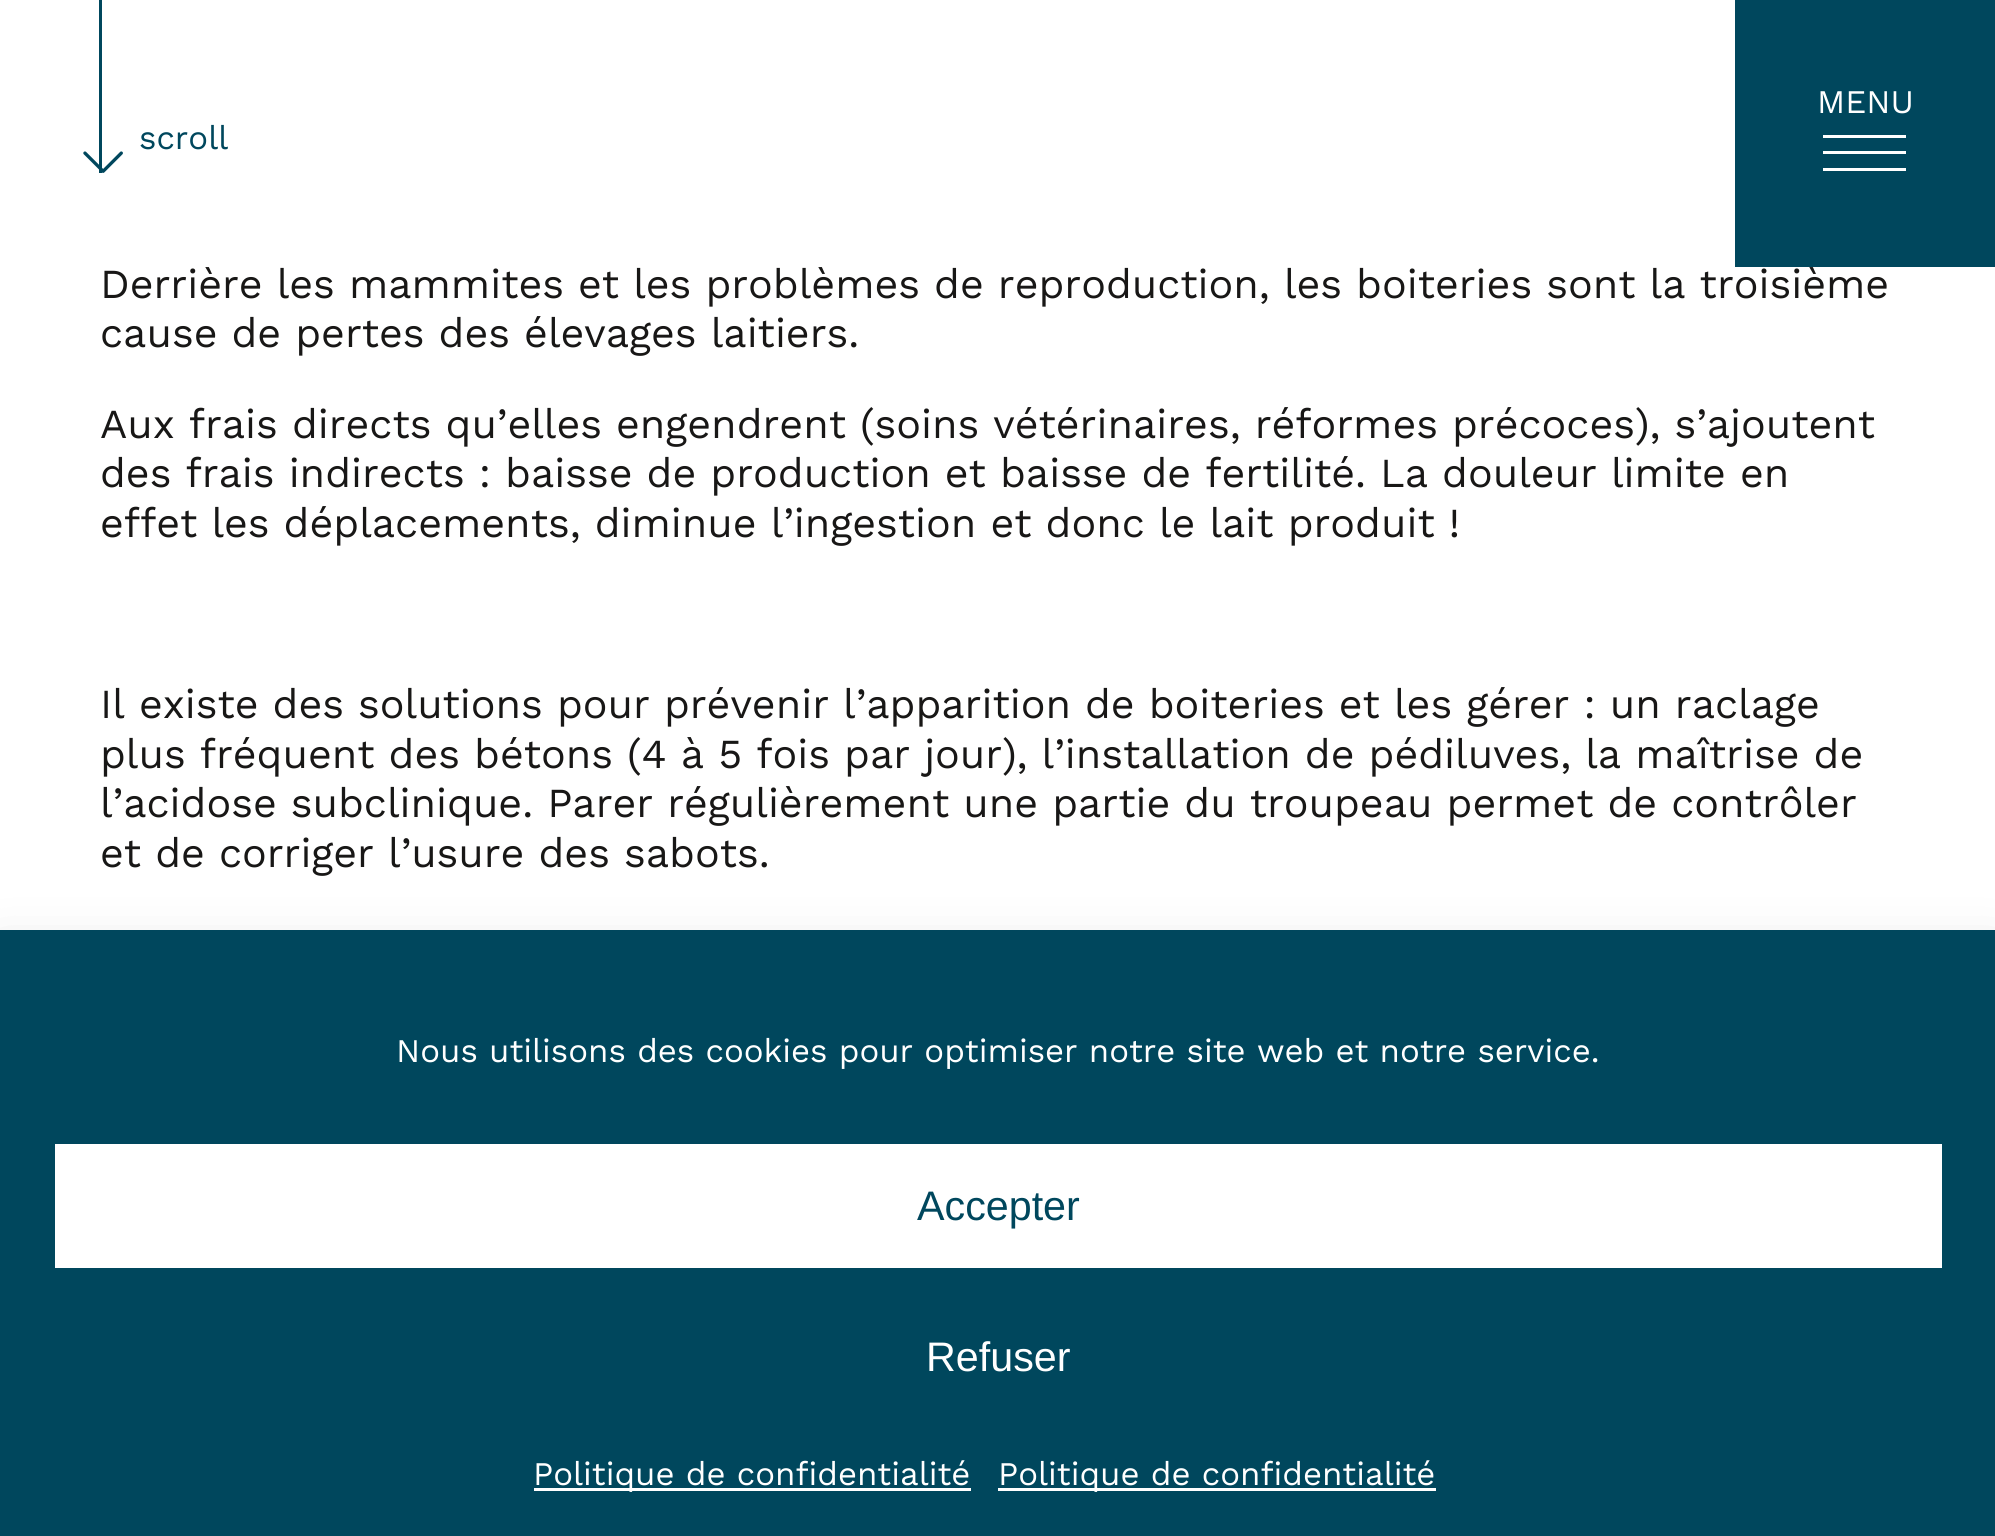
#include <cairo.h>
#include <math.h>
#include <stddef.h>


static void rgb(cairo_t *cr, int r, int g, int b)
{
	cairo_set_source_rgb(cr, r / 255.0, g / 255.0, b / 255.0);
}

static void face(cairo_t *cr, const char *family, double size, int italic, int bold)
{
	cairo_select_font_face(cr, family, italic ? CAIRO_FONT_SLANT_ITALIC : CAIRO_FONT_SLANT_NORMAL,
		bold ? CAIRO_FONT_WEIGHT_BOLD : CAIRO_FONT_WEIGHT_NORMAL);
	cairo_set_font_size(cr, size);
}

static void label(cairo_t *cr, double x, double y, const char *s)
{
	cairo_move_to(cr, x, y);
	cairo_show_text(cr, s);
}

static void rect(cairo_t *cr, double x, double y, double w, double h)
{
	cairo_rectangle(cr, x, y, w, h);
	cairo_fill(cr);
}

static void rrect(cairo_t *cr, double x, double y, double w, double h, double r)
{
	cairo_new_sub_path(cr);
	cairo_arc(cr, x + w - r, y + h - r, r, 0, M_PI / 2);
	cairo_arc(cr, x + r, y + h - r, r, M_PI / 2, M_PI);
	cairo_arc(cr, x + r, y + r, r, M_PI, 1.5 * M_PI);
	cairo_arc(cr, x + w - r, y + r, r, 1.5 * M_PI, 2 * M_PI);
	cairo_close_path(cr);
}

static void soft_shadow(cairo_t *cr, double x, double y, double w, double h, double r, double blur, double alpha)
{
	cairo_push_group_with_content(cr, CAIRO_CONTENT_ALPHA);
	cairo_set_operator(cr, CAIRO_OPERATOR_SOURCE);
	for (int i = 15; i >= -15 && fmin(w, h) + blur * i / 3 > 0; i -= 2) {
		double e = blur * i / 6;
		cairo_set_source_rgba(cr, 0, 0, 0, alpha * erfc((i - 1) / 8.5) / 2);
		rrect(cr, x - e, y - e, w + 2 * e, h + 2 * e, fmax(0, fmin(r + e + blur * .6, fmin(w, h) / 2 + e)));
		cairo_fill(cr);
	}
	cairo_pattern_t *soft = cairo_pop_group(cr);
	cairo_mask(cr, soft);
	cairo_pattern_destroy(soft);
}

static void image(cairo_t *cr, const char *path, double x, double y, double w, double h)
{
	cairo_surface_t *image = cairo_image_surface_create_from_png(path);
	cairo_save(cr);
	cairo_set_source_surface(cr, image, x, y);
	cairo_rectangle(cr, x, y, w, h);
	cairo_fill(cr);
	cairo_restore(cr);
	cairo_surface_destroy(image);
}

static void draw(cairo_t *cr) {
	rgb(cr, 255, 255, 255);
	cairo_paint(cr);
	rgb(cr, 0, 71, 93);
	rect(cr, 1735, 0, 260, 267);
	face(cr, "Work Sans", 33, 0, 0);
	rgb(cr, 255, 255, 255);
	label(cr, 1817, 113, "MENU");
	rect(cr, 1823, 135, 83, 3);
	rect(cr, 1823, 151, 83, 3);
	rect(cr, 1823, 168, 83, 3);
	rgb(cr, 0, 71, 93);
	rect(cr, 99, 0, 3, 173);
	label(cr, 139, 149, "scroll");
	image(cr, "image0.png", 83, 151, 40, 22);
	face(cr, "Work Sans", 41.25, 0, 0);
	rgb(cr, 24, 23, 22);
	label(cr, 100, 298, "Derrière les mammites et les problèmes de reproduction, les boiteries sont la troisième");
	label(cr, 100, 347, "cause de pertes des élevages laitiers.");
	label(cr, 100, 438, "Aux frais directs qu’elles engendrent (soins vétérinaires, réformes précoces), s’ajoutent");
	label(cr, 100, 487, "des frais indirects : baisse de production et baisse de fertilité. La douleur limite en");
	label(cr, 100, 537, "effet les déplacements, diminue l’ingestion et donc le lait produit !");
	label(cr, 100, 718, "Il existe des solutions pour prévenir l’apparition de boiteries et les gérer : un raclage");
	label(cr, 100, 768, "plus fréquent des bétons (4 à 5 fois par jour), l’installation de pédiluves, la maîtrise de");
	label(cr, 100, 817, "l’acidose subclinique. Parer régulièrement une partie du troupeau permet de contrôler");
	label(cr, 100, 867, "et de corriger l’usure des sabots.");
	rgb(cr, 0, 0, 0);
	soft_shadow(cr, 0, 957, 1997, 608, 0, 27.5, 0.19);
	rgb(cr, 0, 71, 93);
	rect(cr, 0, 930, 1995, 606);
	face(cr, "Work Sans", 33, 0, 0);
	rgb(cr, 255, 255, 255);
	label(cr, 396, 1062, "Nous utilisons des cookies pour optimiser notre site web et notre service.");
	rect(cr, 55, 1144, 1887, 124);
	face(cr, "Liberation Sans", 41.25, 0, 0);
	rgb(cr, 0, 71, 93);
	label(cr, 917, 1220, "Accepter");
	rgb(cr, 255, 255, 255);
	label(cr, 926, 1371, "Refuser");
	rect(cr, 534, 1488, 437, 3);
	face(cr, "Work Sans", 33, 0, 0);
	label(cr, 533, 1485, "Politique de confidentialité");
	rect(cr, 998, 1488, 438, 3);
	label(cr, 998, 1485, "Politique de confidentialité");
}

int main(void) {
	cairo_surface_t *surface = cairo_image_surface_create(CAIRO_FORMAT_RGB24, 1995, 1536);
	cairo_t *cr = cairo_create(surface);
	cairo_font_options_t *options = cairo_font_options_create();
	cairo_font_options_set_hint_metrics(options, CAIRO_HINT_METRICS_OFF);
	cairo_font_options_set_hint_style(options, CAIRO_HINT_STYLE_NONE);
	cairo_set_font_options(cr, options);
	cairo_set_miter_limit(cr, 4);
	draw(cr);
	cairo_surface_write_to_png(surface, "render.png");
	cairo_font_options_destroy(options);
	cairo_destroy(cr);
	cairo_surface_destroy(surface);
	return 0;
}
